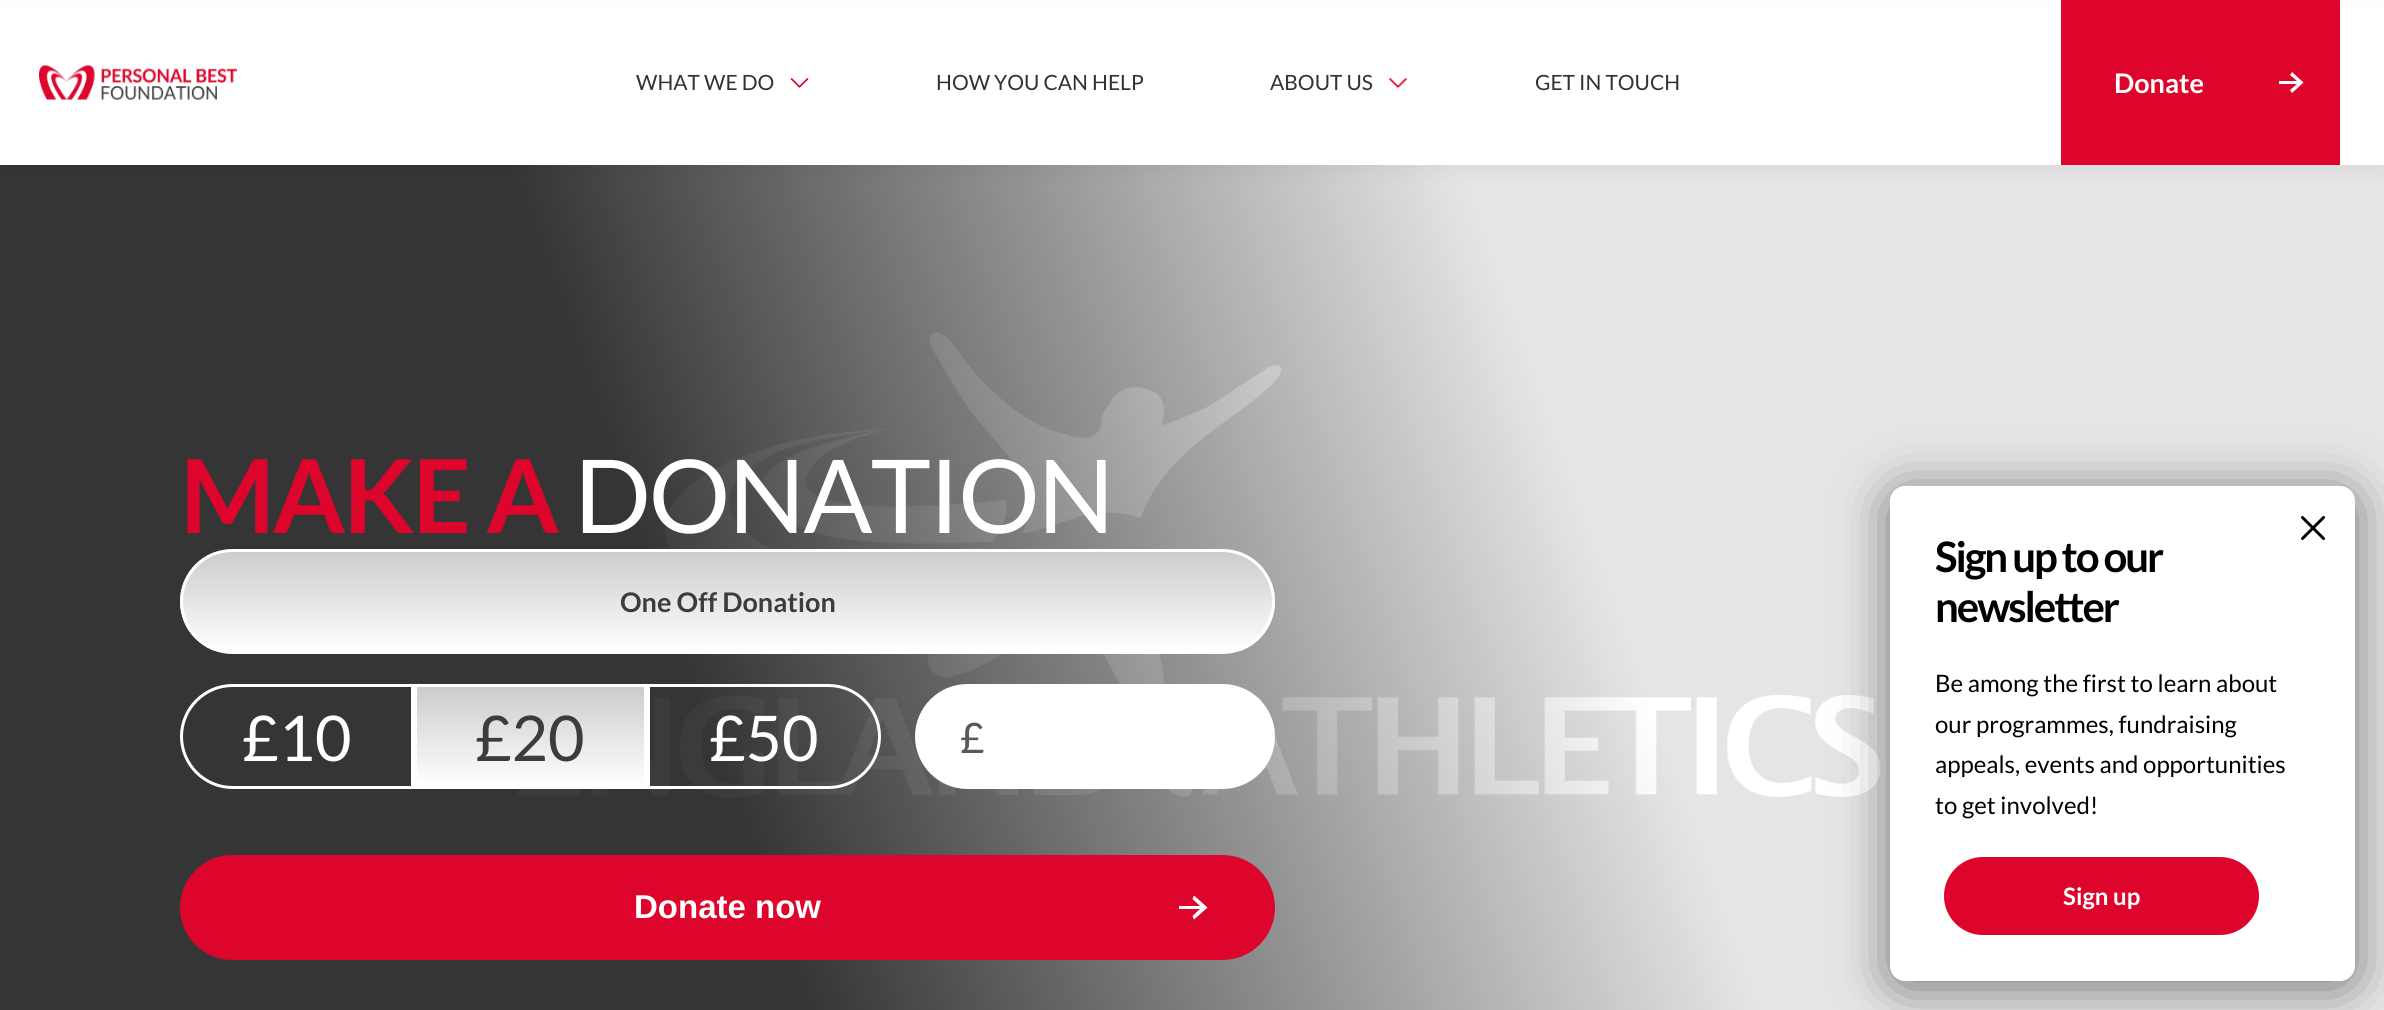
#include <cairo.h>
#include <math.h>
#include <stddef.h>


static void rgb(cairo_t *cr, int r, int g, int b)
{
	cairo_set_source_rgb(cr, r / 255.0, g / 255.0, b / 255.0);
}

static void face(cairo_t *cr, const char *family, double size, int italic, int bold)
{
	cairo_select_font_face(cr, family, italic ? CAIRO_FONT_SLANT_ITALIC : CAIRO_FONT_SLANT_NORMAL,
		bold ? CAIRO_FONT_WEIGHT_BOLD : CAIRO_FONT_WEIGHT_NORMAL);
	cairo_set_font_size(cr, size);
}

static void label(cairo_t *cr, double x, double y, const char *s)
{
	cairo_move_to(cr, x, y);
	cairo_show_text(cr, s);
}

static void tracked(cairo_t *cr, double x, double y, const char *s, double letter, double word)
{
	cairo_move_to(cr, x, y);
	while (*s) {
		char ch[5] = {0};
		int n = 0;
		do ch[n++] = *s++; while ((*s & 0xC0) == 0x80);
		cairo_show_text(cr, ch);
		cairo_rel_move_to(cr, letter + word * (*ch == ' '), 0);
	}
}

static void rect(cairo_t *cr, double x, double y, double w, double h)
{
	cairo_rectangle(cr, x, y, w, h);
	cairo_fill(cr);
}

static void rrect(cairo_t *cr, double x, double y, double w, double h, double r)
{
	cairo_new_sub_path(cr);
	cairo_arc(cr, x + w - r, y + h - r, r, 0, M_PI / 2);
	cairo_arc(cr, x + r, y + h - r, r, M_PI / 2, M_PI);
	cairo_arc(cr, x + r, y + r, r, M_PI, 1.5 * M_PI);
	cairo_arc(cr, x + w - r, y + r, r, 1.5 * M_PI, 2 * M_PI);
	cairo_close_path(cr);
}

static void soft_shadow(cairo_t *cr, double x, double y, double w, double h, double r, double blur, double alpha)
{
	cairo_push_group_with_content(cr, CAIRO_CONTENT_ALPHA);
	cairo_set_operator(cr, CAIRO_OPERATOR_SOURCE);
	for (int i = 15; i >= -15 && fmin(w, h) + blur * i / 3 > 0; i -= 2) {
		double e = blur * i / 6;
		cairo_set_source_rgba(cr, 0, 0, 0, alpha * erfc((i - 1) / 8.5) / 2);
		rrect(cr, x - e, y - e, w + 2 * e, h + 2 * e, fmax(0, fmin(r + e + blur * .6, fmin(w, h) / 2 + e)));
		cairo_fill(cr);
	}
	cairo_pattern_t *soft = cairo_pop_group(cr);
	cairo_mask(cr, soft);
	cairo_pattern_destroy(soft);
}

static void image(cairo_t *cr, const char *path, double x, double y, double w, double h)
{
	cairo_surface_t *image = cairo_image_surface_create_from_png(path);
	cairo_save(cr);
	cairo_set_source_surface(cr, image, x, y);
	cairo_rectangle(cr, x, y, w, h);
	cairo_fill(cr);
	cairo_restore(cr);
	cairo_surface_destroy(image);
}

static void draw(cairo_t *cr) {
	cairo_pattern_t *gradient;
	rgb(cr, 255, 255, 255);
	cairo_paint(cr);
	image(cr, "image3.png", 0, 165, 2384, 845);
	rgb(cr, 0, 0, 0);
	soft_shadow(cr, 0, 9, 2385, 165, 0, 7.5, 0.04);
	rgb(cr, 255, 255, 255);
	rect(cr, 0, 4, 2384, 161);
	image(cr, "image0.png", 39, 65, 198, 35);
	face(cr, "Lato", 21, 0, 0);
	rgb(cr, 50, 50, 50);
	label(cr, 636, 90, "WHAT WE DO");
	image(cr, "image1.png", 790, 78, 19, 10);
	label(cr, 936, 90, "HOW YOU CAN HELP");
	label(cr, 1270, 90, "ABOUT US");
	image(cr, "image2.png", 1388, 78, 20, 10);
	label(cr, 1535, 90, "GET IN TOUCH");
	rgb(cr, 221, 5, 43);
	rect(cr, 2061, 0, 279, 165);
	face(cr, "Lato", 27, 0, 1);
	rgb(cr, 255, 255, 255);
	label(cr, 2114, 93, "Donate");
	cairo_save(cr);
	cairo_rectangle(cr, 2279, 72, 25, 21);
	cairo_clip(cr);
	cairo_new_path(cr);
	cairo_move_to(cr, 2277, 84);
	cairo_line_to(cr, 2277, 81);
	cairo_line_to(cr, 2297, 81);
	cairo_line_to(cr, 2290, 75);
	cairo_line_to(cr, 2292, 72);
	cairo_line_to(cr, 2303.5, 82.5);
	cairo_line_to(cr, 2292, 93);
	cairo_line_to(cr, 2290, 90);
	cairo_line_to(cr, 2297, 84);
	cairo_close_path(cr);
	cairo_fill(cr);
	cairo_restore(cr);
	face(cr, "Lato", 102, 0, 1);
	rgb(cr, 221, 5, 43);
	tracked(cr, 180, 533, "MAKE A", -2, 0);
	face(cr, "Lato", 102, 0, 0);
	rgb(cr, 255, 255, 255);
	tracked(cr, 574, 533, "DONATION", -2, 0);
	cairo_save(cr);
	rrect(cr, 180, 549, 1095, 105, 52.5);
	cairo_clip(cr);
	gradient = cairo_pattern_create_linear(728, 552, 728, 651);
	cairo_pattern_add_color_stop_rgba(gradient, 0, 0.8, 0.8, 0.8, 1);
	cairo_pattern_add_color_stop_rgba(gradient, 1, 1, 1, 1, 1);
	cairo_set_source(cr, gradient);
	cairo_pattern_destroy(gradient);
	rect(cr, 180, 552, 1095, 99);
	cairo_restore(cr);
	rrect(cr, 181.5, 550.5, 1092, 102, 51);
	cairo_set_line_width(cr, 3);
	cairo_stroke(cr);
	face(cr, "Lato", 27, 0, 1);
	rgb(cr, 60, 60, 59);
	label(cr, 620, 612, "One Off Donation");
	cairo_new_path(cr);
	cairo_move_to(cr, 232.5, 685.5);
	cairo_line_to(cr, 412.5, 685.5);
	cairo_line_to(cr, 412.5, 787.5);
	cairo_line_to(cr, 232.5, 787.5);
	cairo_curve_to(cr, 204.5, 787.5, 181.5, 764.5, 181.5, 736.5);
	cairo_curve_to(cr, 181.5, 708.5, 204.5, 685.5, 232.5, 685.5);
	cairo_close_path(cr);
	rgb(cr, 255, 255, 255);
	cairo_stroke(cr);
	face(cr, "Lato", 63, 0, 0);
	label(cr, 242, 761, "£10");
	gradient = cairo_pattern_create_linear(530, 687, 530, 786);
	cairo_pattern_add_color_stop_rgba(gradient, 0, 0.8, 0.8, 0.8, 1);
	cairo_pattern_add_color_stop_rgba(gradient, 1, 1, 1, 1, 1);
	cairo_set_source(cr, gradient);
	cairo_pattern_destroy(gradient);
	rect(cr, 417, 687, 227, 99);
	cairo_rectangle(cr, 415.5, 685.5, 230, 102);
	rgb(cr, 255, 255, 255);
	cairo_stroke(cr);
	rgb(cr, 60, 60, 59);
	label(cr, 475, 761, "£20");
	cairo_new_path(cr);
	cairo_move_to(cr, 648.5, 685.5);
	cairo_line_to(cr, 828.5, 685.5);
	cairo_curve_to(cr, 856.5, 685.5, 879.5, 708.5, 879.5, 736.5);
	cairo_curve_to(cr, 879.5, 764.5, 856.5, 787.5, 828.5, 787.5);
	cairo_line_to(cr, 648.5, 787.5);
	cairo_close_path(cr);
	rgb(cr, 255, 255, 255);
	cairo_stroke(cr);
	label(cr, 709, 761, "£50");
	rrect(cr, 915, 684, 360, 105, 52.5);
	cairo_fill(cr);
	face(cr, "Lato", 42, 0, 0);
	rgb(cr, 89, 89, 89);
	label(cr, 960, 753, "£");
	rgb(cr, 221, 5, 43);
	rrect(cr, 180, 855, 1095, 105, 52.5);
	cairo_fill(cr);
	face(cr, "Liberation Sans", 33, 0, 1);
	rgb(cr, 255, 255, 255);
	label(cr, 634, 918, "Donate now");
	cairo_save(cr);
	cairo_rectangle(cr, 1179, 896, 30, 24);
	cairo_clip(cr);
	cairo_new_path(cr);
	cairo_move_to(cr, 1177, 909);
	cairo_line_to(cr, 1177, 906);
	cairo_line_to(cr, 1200, 906);
	cairo_line_to(cr, 1192.5, 899);
	cairo_line_to(cr, 1194, 895.5);
	cairo_line_to(cr, 1207.5, 907.5);
	cairo_line_to(cr, 1194, 919.5);
	cairo_line_to(cr, 1192.5, 916);
	cairo_line_to(cr, 1200, 909);
	cairo_close_path(cr);
	cairo_fill(cr);
	cairo_restore(cr);
	rgb(cr, 0, 0, 0);
	soft_shadow(cr, 1890, 492, 465, 495, 15, 26, 0.5);
	rgb(cr, 255, 255, 255);
	rrect(cr, 1890, 486, 465, 495, 15);
	cairo_fill(cr);
	image(cr, "image4.png", 2301, 516, 24, 24);
	face(cr, "Lato", 42, 0, 1);
	rgb(cr, 0, 0, 0);
	tracked(cr, 1935, 572, "Sign up to our", -2.1, 0);
	tracked(cr, 1935, 622, "newsletter", -2.1, 0);
	face(cr, "Lato", 24, 0, 0);
	label(cr, 1935, 692, "Be among the first to learn about");
	label(cr, 1935, 733, "our programmes, fundraising");
	label(cr, 1935, 773, "appeals, events and opportunities");
	label(cr, 1935, 814, "to get involved!");
	rgb(cr, 221, 5, 43);
	rrect(cr, 1944, 857, 315, 78, 39);
	cairo_fill(cr);
	face(cr, "Lato", 24, 0, 1);
	rgb(cr, 255, 255, 255);
	label(cr, 2063, 905, "Sign up");
}

int main(void) {
	cairo_surface_t *surface = cairo_image_surface_create(CAIRO_FORMAT_RGB24, 2384, 1010);
	cairo_t *cr = cairo_create(surface);
	cairo_font_options_t *options = cairo_font_options_create();
	cairo_font_options_set_hint_metrics(options, CAIRO_HINT_METRICS_OFF);
	cairo_font_options_set_hint_style(options, CAIRO_HINT_STYLE_NONE);
	cairo_set_font_options(cr, options);
	cairo_set_miter_limit(cr, 4);
	draw(cr);
	cairo_surface_write_to_png(surface, "render.png");
	cairo_font_options_destroy(options);
	cairo_destroy(cr);
	cairo_surface_destroy(surface);
	return 0;
}
